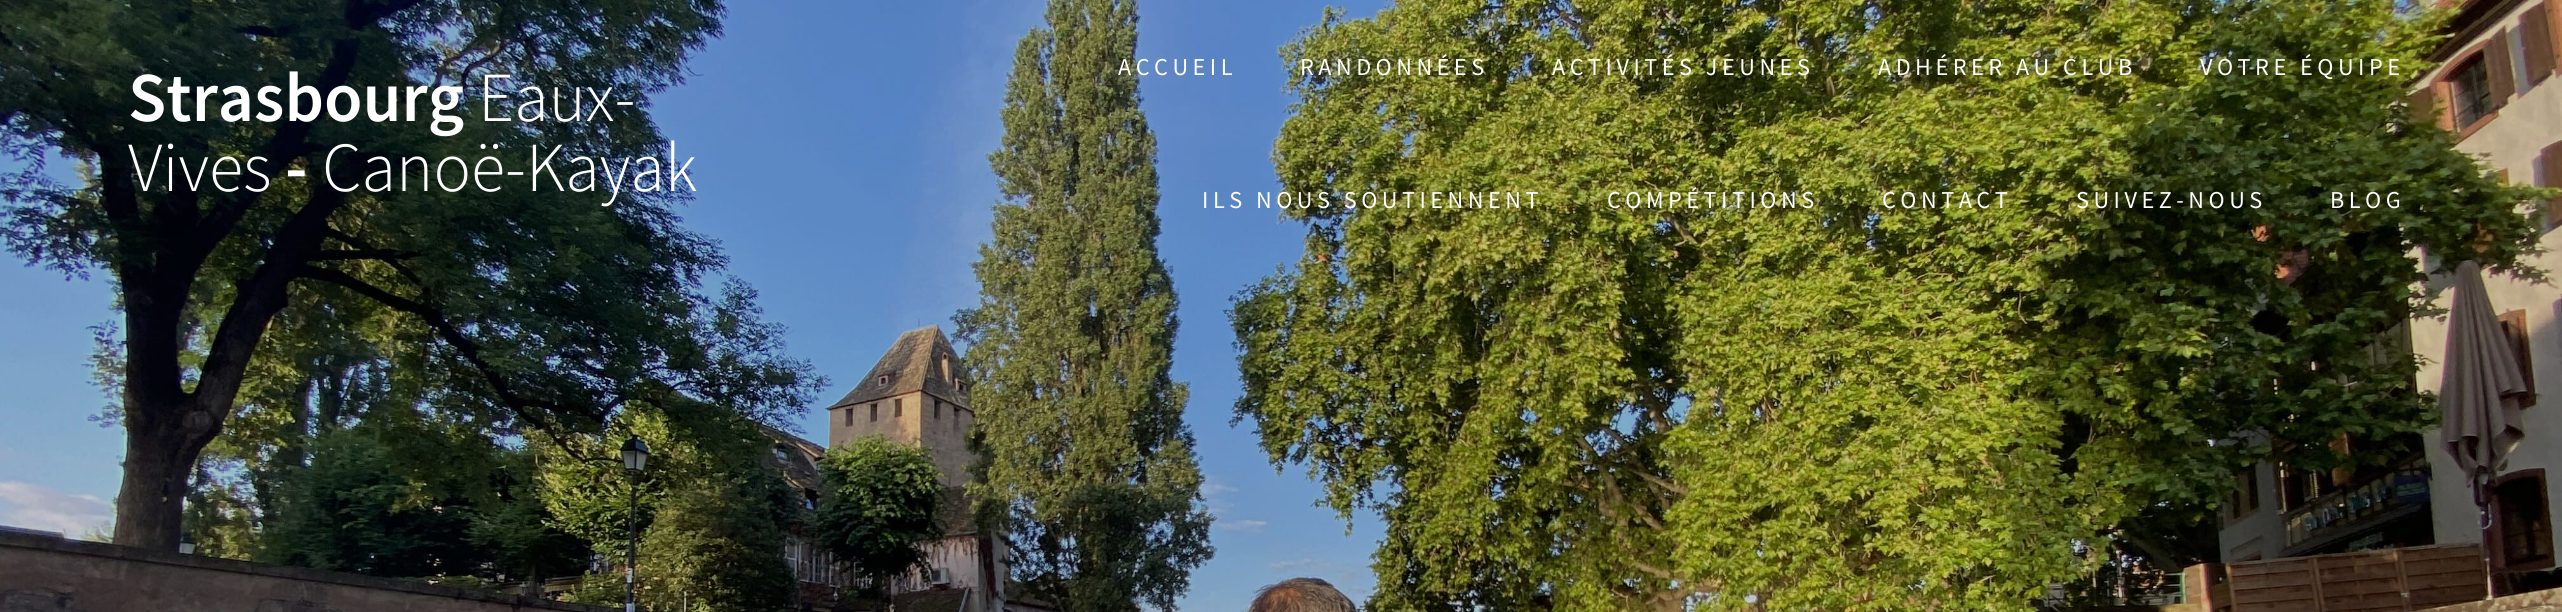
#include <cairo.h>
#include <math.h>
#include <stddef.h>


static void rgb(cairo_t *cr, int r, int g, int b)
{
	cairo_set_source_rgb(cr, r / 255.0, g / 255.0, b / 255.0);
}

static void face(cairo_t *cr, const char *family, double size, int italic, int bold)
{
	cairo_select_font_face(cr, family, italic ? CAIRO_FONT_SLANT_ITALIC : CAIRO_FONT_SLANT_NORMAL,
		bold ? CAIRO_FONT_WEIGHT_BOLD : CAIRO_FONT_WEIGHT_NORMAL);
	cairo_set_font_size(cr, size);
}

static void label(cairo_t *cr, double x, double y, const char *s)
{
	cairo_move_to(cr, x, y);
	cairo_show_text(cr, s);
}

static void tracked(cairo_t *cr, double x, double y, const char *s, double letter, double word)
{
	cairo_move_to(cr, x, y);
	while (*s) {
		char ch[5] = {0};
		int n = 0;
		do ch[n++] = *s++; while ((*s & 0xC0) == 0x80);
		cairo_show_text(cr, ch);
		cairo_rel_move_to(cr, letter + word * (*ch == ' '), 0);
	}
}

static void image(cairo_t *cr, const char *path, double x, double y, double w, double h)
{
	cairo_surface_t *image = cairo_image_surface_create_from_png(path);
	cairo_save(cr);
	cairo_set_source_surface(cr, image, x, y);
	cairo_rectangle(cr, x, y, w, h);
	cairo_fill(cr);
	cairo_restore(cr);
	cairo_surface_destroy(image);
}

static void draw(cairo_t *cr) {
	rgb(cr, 255, 255, 255);
	cairo_paint(cr);
	image(cr, "image0.png", 0, 0, 2562, 612);
	face(cr, "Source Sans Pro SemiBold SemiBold", 70.25, 0, 0);
	rgb(cr, 255, 255, 255);
	label(cr, 128, 121, "Strasbourg");
	face(cr, "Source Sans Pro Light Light", 70.25, 0, 0);
	label(cr, 478, 121, "Eaux-");
	label(cr, 128, 191, "Vives");
	face(cr, "Source Sans Pro SemiBold SemiBold", 70.25, 0, 0);
	label(cr, 285, 191, "-");
	face(cr, "Source Sans Pro Light Light", 70.25, 0, 0);
	label(cr, 322, 191, "Canoë-Kayak");
	face(cr, "Source Sans Pro", 24.25, 0, 0);
	tracked(cr, 1118, 75, "ACCUEIL", 4.5, 0);
	tracked(cr, 1300, 75, "RANDONNÉES", 4.5, 0);
	tracked(cr, 1552, 75, "ACTIVITÉS JEUNES", 4.5, 0);
	tracked(cr, 1878, 75, "ADHÉRER AU CLUB", 4.5, 0);
	tracked(cr, 2200, 75, "VOTRE ÉQUIPE", 4.5, 0);
	tracked(cr, 1202, 208, "ILS NOUS SOUTIENNENT", 4.5, 0);
	tracked(cr, 1607, 208, "COMPÉTITIONS", 4.5, 0);
	tracked(cr, 1882, 208, "CONTACT", 4.5, 0);
	tracked(cr, 2076, 208, "SUIVEZ-NOUS", 4.5, 0);
	tracked(cr, 2330, 208, "BLOG", 4.5, 0);
}

int main(void) {
	cairo_surface_t *surface = cairo_image_surface_create(CAIRO_FORMAT_RGB24, 2562, 612);
	cairo_t *cr = cairo_create(surface);
	cairo_font_options_t *options = cairo_font_options_create();
	cairo_font_options_set_hint_metrics(options, CAIRO_HINT_METRICS_OFF);
	cairo_font_options_set_hint_style(options, CAIRO_HINT_STYLE_NONE);
	cairo_set_font_options(cr, options);
	cairo_set_miter_limit(cr, 4);
	draw(cr);
	cairo_surface_write_to_png(surface, "render.png");
	cairo_font_options_destroy(options);
	cairo_destroy(cr);
	cairo_surface_destroy(surface);
	return 0;
}
